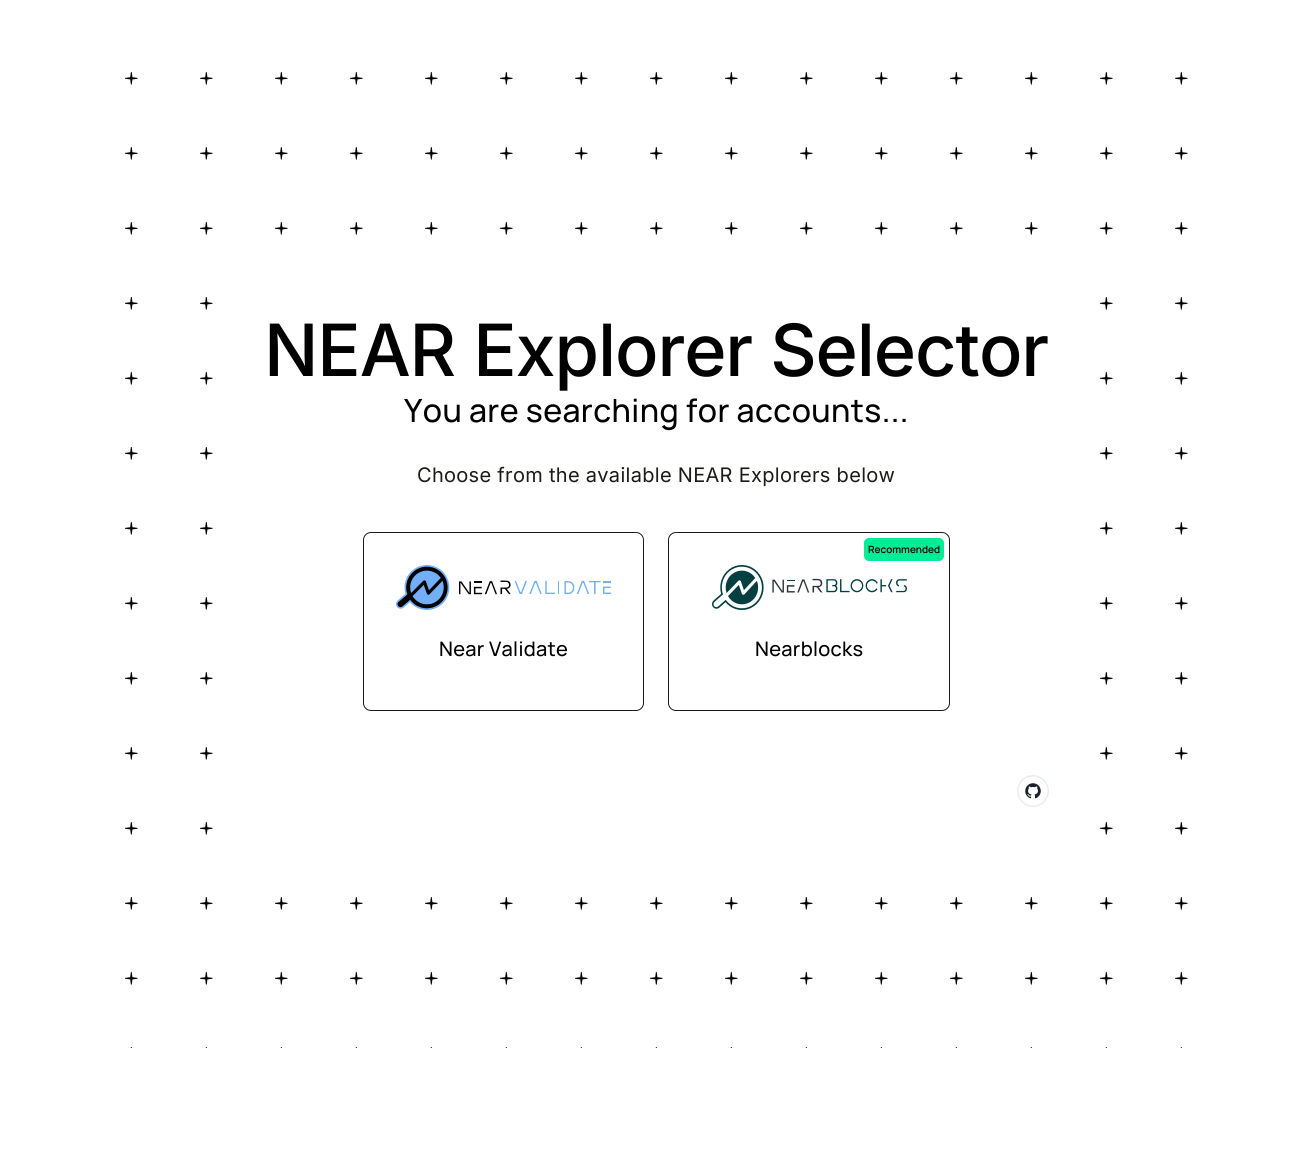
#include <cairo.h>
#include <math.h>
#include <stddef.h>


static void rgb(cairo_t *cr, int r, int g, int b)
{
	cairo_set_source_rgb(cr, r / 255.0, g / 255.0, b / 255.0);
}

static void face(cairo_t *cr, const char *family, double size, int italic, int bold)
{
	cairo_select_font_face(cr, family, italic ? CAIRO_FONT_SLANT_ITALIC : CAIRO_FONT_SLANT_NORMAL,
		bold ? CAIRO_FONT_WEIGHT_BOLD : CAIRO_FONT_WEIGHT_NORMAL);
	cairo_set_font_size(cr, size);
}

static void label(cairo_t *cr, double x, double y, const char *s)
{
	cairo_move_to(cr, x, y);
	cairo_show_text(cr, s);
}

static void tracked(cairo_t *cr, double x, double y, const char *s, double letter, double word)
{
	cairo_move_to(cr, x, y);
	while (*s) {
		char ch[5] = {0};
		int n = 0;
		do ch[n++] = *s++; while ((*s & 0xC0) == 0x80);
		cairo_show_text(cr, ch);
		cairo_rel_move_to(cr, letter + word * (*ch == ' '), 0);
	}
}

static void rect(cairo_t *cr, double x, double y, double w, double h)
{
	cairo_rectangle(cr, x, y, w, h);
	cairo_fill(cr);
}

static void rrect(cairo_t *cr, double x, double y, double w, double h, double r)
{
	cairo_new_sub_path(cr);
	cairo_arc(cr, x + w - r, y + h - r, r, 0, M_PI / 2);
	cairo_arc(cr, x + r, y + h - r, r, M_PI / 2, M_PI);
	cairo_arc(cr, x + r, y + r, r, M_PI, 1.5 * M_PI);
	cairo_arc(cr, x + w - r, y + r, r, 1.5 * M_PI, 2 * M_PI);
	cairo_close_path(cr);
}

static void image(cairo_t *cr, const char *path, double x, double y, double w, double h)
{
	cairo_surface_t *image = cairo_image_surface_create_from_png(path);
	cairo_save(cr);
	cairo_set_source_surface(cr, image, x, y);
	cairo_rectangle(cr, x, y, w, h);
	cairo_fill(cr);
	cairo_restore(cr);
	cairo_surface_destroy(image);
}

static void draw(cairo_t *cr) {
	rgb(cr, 255, 255, 255);
	cairo_paint(cr);
	image(cr, "image0.png", 125, 72, 1063, 976);
	rgb(cr, 255, 255, 255);
	rect(cr, 275, 297, 763, 538);
	face(cr, "Inter Medium", 72, 0, 0);
	rgb(cr, 0, 0, 0);
	tracked(cr, 264, 376, "NEAR Explorer Selector", -1.1, 0);
	face(cr, "Manrope Medium", 32, 0, 0);
	tracked(cr, 404, 422, "You are searching for accounts...", 0.4, 0);
	face(cr, "Inter", 20, 0, 0);
	rgb(cr, 27, 27, 24);
	tracked(cr, 417, 482, "Choose from the available NEAR Explorers below", 0.3, 0);
	rrect(cr, 363.5, 532.5, 280, 178, 7.5);
	cairo_set_line_width(cr, 1);
	cairo_stroke(cr);
	image(cr, "image1.png", 396, 565, 215, 45);
	face(cr, "Manrope Medium", 20, 0, 0);
	rgb(cr, 0, 0, 0);
	tracked(cr, 439, 656, "Near Validate", 0.3, 0);
	rrect(cr, 668.5, 532.5, 281, 178, 7.5);
	rgb(cr, 27, 27, 24);
	cairo_stroke(cr);
	rgb(cr, 0, 236, 151);
	rrect(cr, 864, 538, 80, 23, 5);
	cairo_fill(cr);
	face(cr, "Manrope SemiBold", 10, 0, 0);
	rgb(cr, 0, 0, 0);
	label(cr, 868, 553, "Recommended");
	image(cr, "image2.png", 712, 565, 195, 45);
	face(cr, "Manrope Medium", 20, 0, 0);
	tracked(cr, 755, 656, "Nearblocks", 0.3, 0);
	image(cr, "image3.png", 1017, 775, 32, 32);
}

int main(void) {
	cairo_surface_t *surface = cairo_image_surface_create(CAIRO_FORMAT_RGB24, 1313, 1162);
	cairo_t *cr = cairo_create(surface);
	cairo_font_options_t *options = cairo_font_options_create();
	cairo_font_options_set_hint_metrics(options, CAIRO_HINT_METRICS_OFF);
	cairo_font_options_set_hint_style(options, CAIRO_HINT_STYLE_NONE);
	cairo_set_font_options(cr, options);
	cairo_set_miter_limit(cr, 4);
	draw(cr);
	cairo_surface_write_to_png(surface, "render.png");
	cairo_font_options_destroy(options);
	cairo_destroy(cr);
	cairo_surface_destroy(surface);
	return 0;
}
